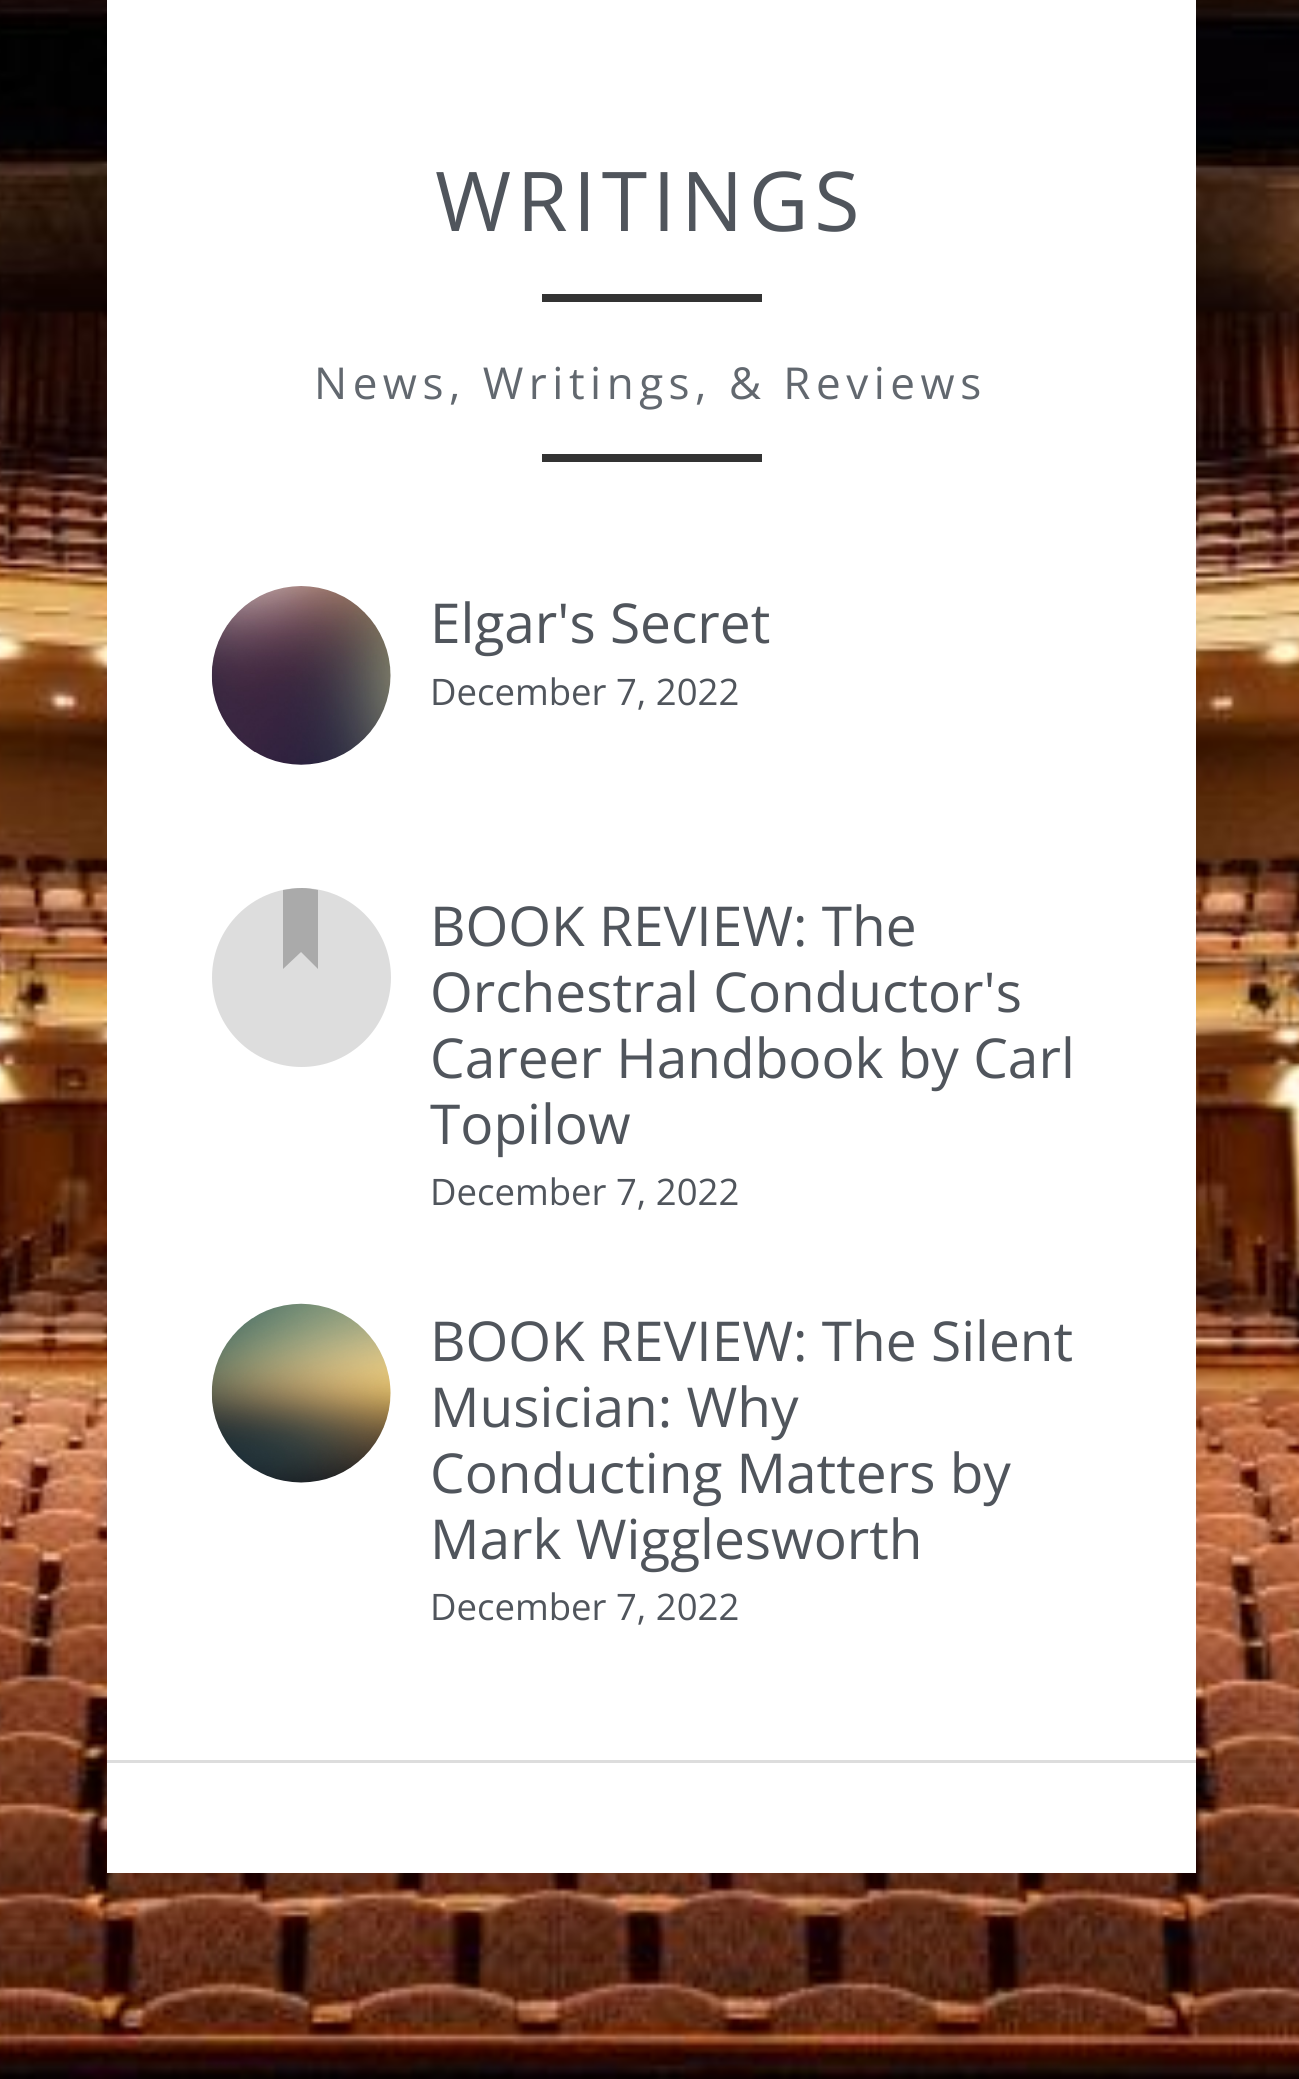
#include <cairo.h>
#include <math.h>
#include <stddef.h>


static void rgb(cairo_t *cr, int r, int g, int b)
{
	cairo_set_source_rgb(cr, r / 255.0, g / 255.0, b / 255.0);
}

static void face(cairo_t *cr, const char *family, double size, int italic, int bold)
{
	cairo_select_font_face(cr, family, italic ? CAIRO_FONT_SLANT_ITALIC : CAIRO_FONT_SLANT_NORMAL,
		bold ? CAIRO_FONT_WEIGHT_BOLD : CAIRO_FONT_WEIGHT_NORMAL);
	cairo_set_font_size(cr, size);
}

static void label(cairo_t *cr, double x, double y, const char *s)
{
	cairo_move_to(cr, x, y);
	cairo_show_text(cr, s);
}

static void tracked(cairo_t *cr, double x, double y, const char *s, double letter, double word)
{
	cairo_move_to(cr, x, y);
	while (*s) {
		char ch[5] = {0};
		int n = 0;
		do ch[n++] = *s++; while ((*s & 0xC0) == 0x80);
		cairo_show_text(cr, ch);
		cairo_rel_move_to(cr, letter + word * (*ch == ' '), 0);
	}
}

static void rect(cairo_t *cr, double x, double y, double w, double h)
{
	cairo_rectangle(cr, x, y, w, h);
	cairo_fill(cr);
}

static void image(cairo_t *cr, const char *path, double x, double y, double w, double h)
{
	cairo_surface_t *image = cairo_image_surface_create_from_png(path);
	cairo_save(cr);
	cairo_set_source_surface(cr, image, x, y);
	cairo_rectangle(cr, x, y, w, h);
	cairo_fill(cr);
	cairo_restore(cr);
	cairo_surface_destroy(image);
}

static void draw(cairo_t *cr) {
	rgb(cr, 255, 255, 255);
	cairo_paint(cr);
	image(cr, "image0.png", 0, 0, 1299, 2079);
	rgb(cr, 255, 255, 255);
	rect(cr, 107, 0, 1089, 1873);
	rgb(cr, 221, 221, 221);
	rect(cr, 107, 1760, 1089, 3);
	face(cr, "Open Sans", 82.5, 0, 0);
	rgb(cr, 80, 85, 92);
	tracked(cr, 435, 231, "WRITINGS", 5.5, 0);
	rgb(cr, 51, 51, 51);
	rect(cr, 542, 294, 220, 8);
	face(cr, "Open Sans", 44, 0, 0);
	rgb(cr, 98, 104, 111);
	tracked(cr, 314, 399, "News, Writings, & Reviews", 5.5, 0);
	rgb(cr, 51, 51, 51);
	rect(cr, 542, 454, 220, 8);
	image(cr, "image1.png", 211, 586, 180, 179);
	face(cr, "Open Sans", 55, 0, 0);
	rgb(cr, 80, 85, 92);
	label(cr, 430, 643, "Elgar's Secret");
	face(cr, "Open Sans", 36.5, 0, 0);
	label(cr, 430, 705, "December 7, 2022");
	rgb(cr, 221, 221, 221);
	cairo_new_path(cr);
	cairo_arc(cr, 301.5, 977.5, 89.5, 0, 2 * M_PI);
	cairo_fill(cr);
	rgb(cr, 170, 170, 170);
	cairo_new_path(cr);
	cairo_move_to(cr, 302, 888);
	cairo_curve_to(cr, 307, 888, 313, 889, 318, 890);
	cairo_line_to(cr, 318, 969);
	cairo_line_to(cr, 301, 952);
	cairo_line_to(cr, 283, 969);
	cairo_line_to(cr, 283, 890);
	cairo_curve_to(cr, 289, 889, 295, 888, 302, 888);
	cairo_close_path(cr);
	cairo_fill(cr);
	face(cr, "Open Sans", 55, 0, 0);
	rgb(cr, 80, 85, 92);
	label(cr, 430, 946, "BOOK REVIEW: The");
	label(cr, 430, 1012, "Orchestral Conductor's");
	label(cr, 430, 1078, "Career Handbook by Carl");
	label(cr, 430, 1144, "Topilow");
	face(cr, "Open Sans", 36.5, 0, 0);
	label(cr, 430, 1205, "December 7, 2022");
	image(cr, "image2.png", 211, 1303, 180, 180);
	face(cr, "Open Sans", 55, 0, 0);
	label(cr, 430, 1361, "BOOK REVIEW: The Silent");
	label(cr, 430, 1427, "Musician: Why");
	label(cr, 430, 1493, "Conducting Matters by");
	label(cr, 430, 1559, "Mark Wigglesworth");
	face(cr, "Open Sans", 36.5, 0, 0);
	label(cr, 430, 1620, "December 7, 2022");
}

int main(void) {
	cairo_surface_t *surface = cairo_image_surface_create(CAIRO_FORMAT_RGB24, 1299, 2079);
	cairo_t *cr = cairo_create(surface);
	cairo_font_options_t *options = cairo_font_options_create();
	cairo_font_options_set_hint_metrics(options, CAIRO_HINT_METRICS_OFF);
	cairo_font_options_set_hint_style(options, CAIRO_HINT_STYLE_NONE);
	cairo_set_font_options(cr, options);
	cairo_set_miter_limit(cr, 4);
	draw(cr);
	cairo_surface_write_to_png(surface, "render.png");
	cairo_font_options_destroy(options);
	cairo_destroy(cr);
	cairo_surface_destroy(surface);
	return 0;
}
